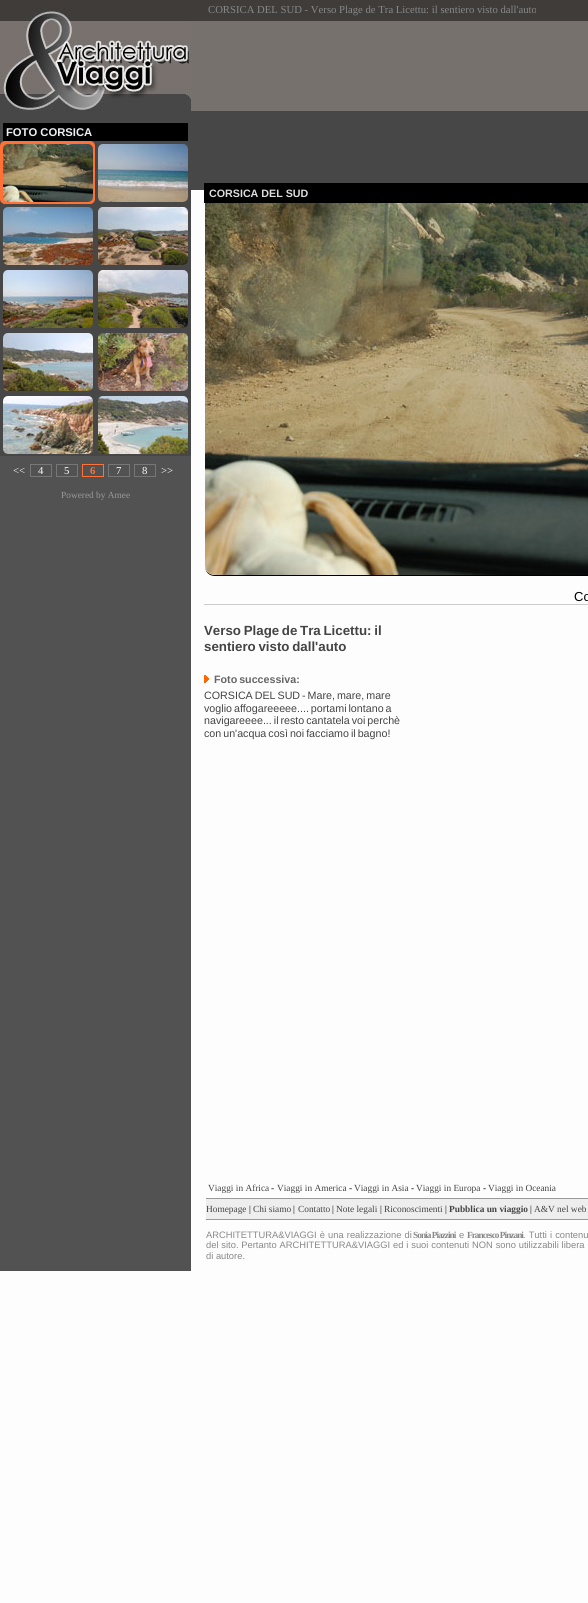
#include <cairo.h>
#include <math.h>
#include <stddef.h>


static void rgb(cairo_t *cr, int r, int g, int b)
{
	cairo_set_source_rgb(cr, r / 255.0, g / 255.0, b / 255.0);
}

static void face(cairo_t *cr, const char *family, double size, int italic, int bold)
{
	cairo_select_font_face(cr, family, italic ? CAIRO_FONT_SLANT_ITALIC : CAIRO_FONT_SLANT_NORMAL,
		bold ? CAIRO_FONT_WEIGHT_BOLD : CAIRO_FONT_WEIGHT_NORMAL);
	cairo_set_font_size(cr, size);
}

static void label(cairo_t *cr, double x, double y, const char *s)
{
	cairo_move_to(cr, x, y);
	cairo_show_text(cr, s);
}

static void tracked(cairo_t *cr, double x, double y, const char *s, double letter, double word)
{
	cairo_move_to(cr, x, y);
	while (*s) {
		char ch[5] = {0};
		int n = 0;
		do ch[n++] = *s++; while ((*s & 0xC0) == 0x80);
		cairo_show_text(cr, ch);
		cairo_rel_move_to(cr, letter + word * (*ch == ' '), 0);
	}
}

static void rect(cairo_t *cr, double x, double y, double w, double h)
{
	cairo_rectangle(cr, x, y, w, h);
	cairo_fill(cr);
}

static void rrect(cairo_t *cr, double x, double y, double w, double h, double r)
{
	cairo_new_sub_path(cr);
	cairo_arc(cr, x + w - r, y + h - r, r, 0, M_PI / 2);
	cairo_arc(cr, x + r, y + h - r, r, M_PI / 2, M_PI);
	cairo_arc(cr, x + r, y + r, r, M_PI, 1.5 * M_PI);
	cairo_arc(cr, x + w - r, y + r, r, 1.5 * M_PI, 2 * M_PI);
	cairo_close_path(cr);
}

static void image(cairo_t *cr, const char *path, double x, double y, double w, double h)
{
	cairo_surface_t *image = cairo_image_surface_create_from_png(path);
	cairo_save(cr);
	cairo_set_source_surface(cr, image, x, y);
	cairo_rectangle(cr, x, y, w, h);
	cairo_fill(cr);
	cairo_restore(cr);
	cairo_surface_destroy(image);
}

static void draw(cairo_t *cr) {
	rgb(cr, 253, 253, 253);
	cairo_paint(cr);
	image(cr, "image0.png", 191, 0, 397, 190);
	face(cr, "Liberation Serif", 10.7, 0, 0);
	rgb(cr, 136, 136, 136);
	label(cr, 208, 13, "CORSICA DEL SUD - Verso Plage de Tra Licettu: il sentiero visto dall'auto");
	rgb(cr, 82, 82, 82);
	rect(cr, 0, 456, 191, 815);
	rgb(cr, 71, 71, 71);
	rect(cr, 0, 111, 191, 345);
	image(cr, "image1.png", 0, 0, 191, 111);
	rgb(cr, 0, 0, 0);
	rect(cr, 3, 123, 185, 18);
	face(cr, "Liberation Sans", 11.25, 0, 1);
	rgb(cr, 238, 238, 238);
	label(cr, 6, 136, "FOTO CORSICA");
	rgb(cr, 255, 113, 54);
	rrect(cr, 0, 141, 95, 63, 5);
	cairo_fill(cr);
	image(cr, "image2.png", 3, 144, 90, 58);
	image(cr, "image3.png", 98, 144, 90, 58);
	image(cr, "image4.png", 3, 207, 90, 58);
	image(cr, "image5.png", 98, 207, 90, 58);
	image(cr, "image6.png", 3, 270, 90, 58);
	image(cr, "image7.png", 98, 270, 90, 58);
	image(cr, "image8.png", 3, 333, 90, 58);
	image(cr, "image9.png", 98, 333, 90, 58);
	image(cr, "image10.png", 3, 396, 90, 58);
	image(cr, "image11.png", 98, 396, 90, 58);
	face(cr, "Liberation Serif", 10.7, 0, 0);
	rgb(cr, 252, 252, 252);
	label(cr, 13, 474, "<<");
	cairo_rectangle(cr, 30.5, 464.5, 21, 12);
	rgb(cr, 119, 119, 119);
	cairo_set_line_width(cr, 1);
	cairo_stroke(cr);
	rgb(cr, 252, 252, 252);
	label(cr, 38, 474, "4");
	cairo_rectangle(cr, 56.5, 464.5, 21, 12);
	rgb(cr, 119, 119, 119);
	cairo_stroke(cr);
	rgb(cr, 252, 252, 252);
	label(cr, 64, 474, "5");
	cairo_rectangle(cr, 82.5, 464.5, 21, 12);
	rgb(cr, 255, 113, 54);
	cairo_stroke(cr);
	face(cr, "Liberation Serif", 10.7, 0, 1);
	label(cr, 90, 474, "6");
	cairo_rectangle(cr, 108.5, 464.5, 21, 12);
	rgb(cr, 119, 119, 119);
	cairo_stroke(cr);
	face(cr, "Liberation Serif", 10.7, 0, 0);
	rgb(cr, 252, 252, 252);
	label(cr, 116, 474, "7");
	cairo_rectangle(cr, 134.5, 464.5, 21, 12);
	rgb(cr, 119, 119, 119);
	cairo_stroke(cr);
	rgb(cr, 252, 252, 252);
	label(cr, 142, 474, "8");
	label(cr, 161, 474, ">>");
	face(cr, "Liberation Serif", 9.35, 0, 0);
	rgb(cr, 153, 153, 153);
	label(cr, 61, 498, "Powered by Amee");
	rgb(cr, 0, 0, 0);
	rect(cr, 204, 183, 384, 20);
	face(cr, "Liberation Sans", 10.7, 0, 1);
	rgb(cr, 221, 221, 221);
	label(cr, 209, 197, "CORSICA DEL SUD");
	rgb(cr, 0, 0, 0);
	cairo_set_fill_rule(cr, CAIRO_FILL_RULE_EVEN_ODD);
	cairo_new_path(cr);
	cairo_move_to(cr, 205, 203);
	cairo_line_to(cr, 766, 203);
	cairo_line_to(cr, 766, 566);
	cairo_curve_to(cr, 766, 572, 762, 576, 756, 576);
	cairo_line_to(cr, 215, 576);
	cairo_curve_to(cr, 209, 576, 205, 572, 205, 566);
	cairo_close_path(cr);
	cairo_move_to(cr, 205, 203);
	cairo_line_to(cr, 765, 203);
	cairo_line_to(cr, 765, 566);
	cairo_curve_to(cr, 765, 571, 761, 575, 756, 575);
	cairo_line_to(cr, 215, 575);
	cairo_curve_to(cr, 209, 575, 205, 571, 205, 566);
	cairo_close_path(cr);
	cairo_fill(cr);
	image(cr, "image12.png", 205, 203, 383, 372);
	rgb(cr, 204, 204, 204);
	rect(cr, 204, 604, 384, 1);
	face(cr, "Liberation Sans", 13, 0, 0);
	rgb(cr, 0, 0, 0);
	label(cr, 574, 601, "Co");
	face(cr, "Liberation Sans", 13.3, 0, 1);
	rgb(cr, 68, 68, 68);
	tracked(cr, 204, 635, "Verso Plage de Tra Licettu: il", 0, -1);
	tracked(cr, 204, 651, "sentiero visto dall'auto", 0, -1);
	image(cr, "image13.png", 204, 675, 5, 8);
	face(cr, "Liberation Sans", 10.7, 0, 1);
	rgb(cr, 102, 102, 102);
	tracked(cr, 214, 683, "Foto successiva:", 0, -1);
	face(cr, "Liberation Sans", 10.7, 0, 0);
	rgb(cr, 68, 68, 68);
	tracked(cr, 204, 699, "CORSICA DEL SUD - Mare, mare, mare", 0, -1);
	tracked(cr, 204, 712, "voglio affogareeeee.... portami lontano a", 0, -1);
	tracked(cr, 204, 724, "navigareeee... il resto cantatela voi perchè", 0, -1);
	tracked(cr, 204, 737, "con un'acqua così noi facciamo il bagno!", 0, -1);
	rgb(cr, 153, 153, 153);
	rect(cr, 206, 1198, 382, 1);
	face(cr, "Liberation Serif", 9.35, 0, 0);
	rgb(cr, 68, 68, 68);
	label(cr, 208, 1191, "Viaggi in Africa");
	rgb(cr, 0, 0, 0);
	label(cr, 271, 1191, "-");
	rgb(cr, 68, 68, 68);
	label(cr, 277, 1191, "Viaggi in America");
	rgb(cr, 0, 0, 0);
	label(cr, 349, 1191, "-");
	rgb(cr, 68, 68, 68);
	label(cr, 354, 1191, "Viaggi in Asia");
	rgb(cr, 0, 0, 0);
	label(cr, 411, 1191, "-");
	rgb(cr, 68, 68, 68);
	label(cr, 416, 1191, "Viaggi in Europa");
	rgb(cr, 0, 0, 0);
	label(cr, 483, 1191, "-");
	rgb(cr, 68, 68, 68);
	label(cr, 488, 1191, "Viaggi in Oceania");
	rgb(cr, 238, 238, 238);
	rect(cr, 206, 1199, 382, 20);
	rgb(cr, 153, 153, 153);
	rect(cr, 206, 1219, 382, 1);
	rgb(cr, 68, 68, 68);
	label(cr, 206, 1212, "Homepage");
	rgb(cr, 0, 0, 0);
	label(cr, 249, 1212, "|");
	rgb(cr, 68, 68, 68);
	label(cr, 253, 1212, "Chi siamo");
	rgb(cr, 0, 0, 0);
	label(cr, 293, 1212, "|");
	rgb(cr, 68, 68, 68);
	label(cr, 298, 1212, "Contatto");
	rgb(cr, 0, 0, 0);
	label(cr, 332, 1212, "|");
	rgb(cr, 68, 68, 68);
	label(cr, 336, 1212, "Note legali");
	rgb(cr, 0, 0, 0);
	label(cr, 380, 1212, "|");
	rgb(cr, 68, 68, 68);
	label(cr, 384, 1212, "Riconoscimenti");
	rgb(cr, 0, 0, 0);
	label(cr, 445, 1212, "|");
	face(cr, "Liberation Serif", 9.35, 0, 1);
	rgb(cr, 68, 68, 68);
	label(cr, 449, 1212, "Pubblica un viaggio");
	face(cr, "Liberation Serif", 9.35, 0, 0);
	rgb(cr, 0, 0, 0);
	label(cr, 530, 1212, "|");
	rgb(cr, 68, 68, 68);
	label(cr, 534, 1212, "A&V nel web");
	face(cr, "Liberation Sans", 9.35, 0, 0);
	rgb(cr, 136, 136, 136);
	tracked(cr, 206, 1238, "ARCHITETTURA&VIAGGI è una realizzazione di", 0, 0.5);
	face(cr, "Liberation Serif", 9.35, 0, 1);
	tracked(cr, 413, 1238, "Sonia Piazzini", -1, 0);
	face(cr, "Liberation Sans", 9.35, 0, 0);
	label(cr, 459, 1238, "e");
	face(cr, "Liberation Serif", 9.35, 0, 1);
	tracked(cr, 467, 1238, "Francesco Pinzani", -1, 0);
	face(cr, "Liberation Sans", 9.35, 0, 0);
	tracked(cr, 523, 1238, ". Tutti i contenu", 0, 0.5);
	tracked(cr, 206, 1248, "del sito. Pertanto ARCHITETTURA&VIAGGI ed i suoi contenuti NON sono utilizzabili libera", 0, 0.25);
	label(cr, 206, 1259, "di autore.");
}

int main(void) {
	cairo_surface_t *surface = cairo_image_surface_create(CAIRO_FORMAT_RGB24, 588, 1603);
	cairo_t *cr = cairo_create(surface);
	cairo_font_options_t *options = cairo_font_options_create();
	cairo_font_options_set_hint_metrics(options, CAIRO_HINT_METRICS_OFF);
	cairo_font_options_set_hint_style(options, CAIRO_HINT_STYLE_NONE);
	cairo_set_font_options(cr, options);
	cairo_set_miter_limit(cr, 4);
	draw(cr);
	cairo_surface_write_to_png(surface, "render.png");
	cairo_font_options_destroy(options);
	cairo_destroy(cr);
	cairo_surface_destroy(surface);
	return 0;
}
